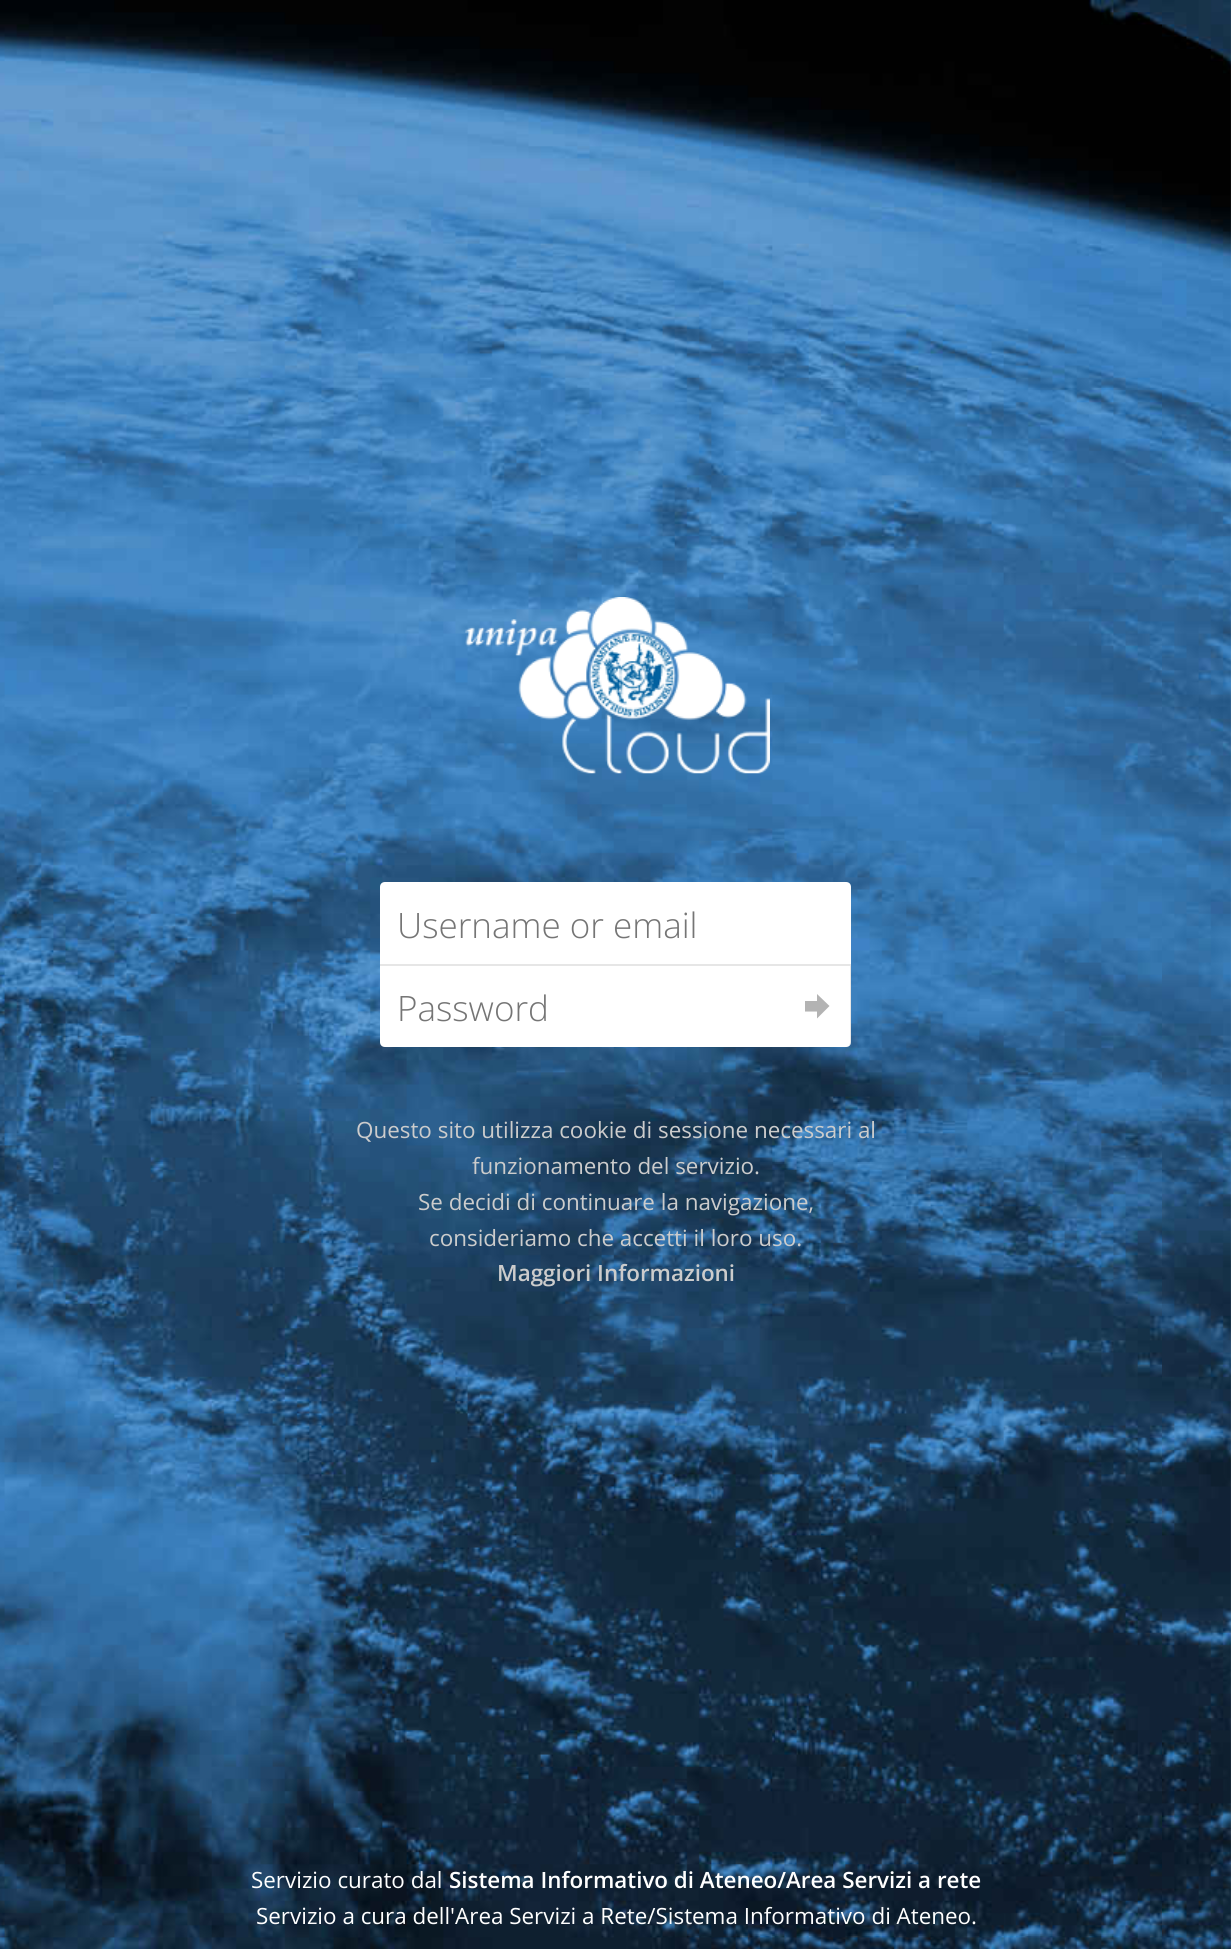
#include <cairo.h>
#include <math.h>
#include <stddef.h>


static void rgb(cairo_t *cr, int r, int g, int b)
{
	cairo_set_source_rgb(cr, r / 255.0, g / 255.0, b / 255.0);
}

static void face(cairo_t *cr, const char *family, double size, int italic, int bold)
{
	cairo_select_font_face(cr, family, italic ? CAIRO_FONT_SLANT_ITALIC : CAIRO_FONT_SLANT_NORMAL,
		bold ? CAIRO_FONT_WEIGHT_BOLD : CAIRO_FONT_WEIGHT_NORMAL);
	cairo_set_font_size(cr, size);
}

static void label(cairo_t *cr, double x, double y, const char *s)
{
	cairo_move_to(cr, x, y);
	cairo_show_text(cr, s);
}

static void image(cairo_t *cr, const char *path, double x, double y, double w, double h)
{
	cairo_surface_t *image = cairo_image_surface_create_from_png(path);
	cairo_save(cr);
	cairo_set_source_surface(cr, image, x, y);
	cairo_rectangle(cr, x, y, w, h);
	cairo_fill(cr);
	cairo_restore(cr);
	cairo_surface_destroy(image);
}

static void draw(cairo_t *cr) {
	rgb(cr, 255, 255, 255);
	cairo_paint(cr);
	image(cr, "image0.png", 0, 0, 1231, 1949);
	image(cr, "image1.png", 465, 597, 305, 177);
	rgb(cr, 255, 255, 255);
	cairo_new_path(cr);
	cairo_move_to(cr, 385, 882);
	cairo_line_to(cr, 846, 882);
	cairo_curve_to(cr, 849, 882, 851, 884, 851, 887);
	cairo_line_to(cr, 851, 964);
	cairo_line_to(cr, 380, 964);
	cairo_line_to(cr, 380, 887);
	cairo_curve_to(cr, 380, 884, 382, 882, 385, 882);
	cairo_close_path(cr);
	cairo_fill(cr);
	face(cr, "Open Sans Light", 35, 0, 0);
	rgb(cr, 117, 117, 117);
	label(cr, 397, 938, "Username or email");
	rgb(cr, 255, 255, 255);
	cairo_new_path(cr);
	cairo_move_to(cr, 380, 964);
	cairo_line_to(cr, 851, 964);
	cairo_line_to(cr, 851, 1042);
	cairo_curve_to(cr, 851, 1045, 849, 1047, 846, 1047);
	cairo_line_to(cr, 385, 1047);
	cairo_curve_to(cr, 382, 1047, 380, 1045, 380, 1042);
	cairo_close_path(cr);
	cairo_fill(cr);
	cairo_set_source_rgba(cr, 0, 0, 0, 0.1);
	cairo_new_path(cr);
	cairo_move_to(cr, 380, 966);
	cairo_line_to(cr, 850, 966);
	cairo_line_to(cr, 850, 1043);
	cairo_line_to(cr, 849, 1046);
	cairo_line_to(cr, 851, 1043);
	cairo_line_to(cr, 851, 964);
	cairo_line_to(cr, 380, 964);
	cairo_close_path(cr);
	cairo_fill(cr);
	rgb(cr, 117, 117, 117);
	label(cr, 397, 1021, "Password");
	rgb(cr, 179, 179, 179);
	cairo_new_path(cr);
	cairo_move_to(cr, 805, 1011.5);
	cairo_line_to(cr, 805, 1001);
	cairo_line_to(cr, 817, 1001);
	cairo_line_to(cr, 817, 994);
	cairo_line_to(cr, 829.5, 1006);
	cairo_line_to(cr, 817, 1018.5);
	cairo_line_to(cr, 817, 1011.5);
	cairo_close_path(cr);
	cairo_fill(cr);
	face(cr, "Open Sans", 22.4, 0, 0);
	rgb(cr, 204, 204, 204);
	label(cr, 356, 1138, "Questo sito utilizza cookie di sessione necessari al");
	label(cr, 472, 1174, "funzionamento del servizio.");
	label(cr, 418, 1210, "Se decidi di continuare la navigazione,");
	label(cr, 429, 1246, "consideriamo che accetti il loro uso.");
	face(cr, "Open Sans SemiBold", 22.4, 0, 0);
	label(cr, 497, 1281, "Maggiori Informazioni");
	face(cr, "Open Sans", 22.4, 0, 0);
	rgb(cr, 255, 255, 255);
	label(cr, 251, 1888, "Servizio curato dal");
	face(cr, "Open Sans SemiBold", 22.4, 0, 0);
	label(cr, 449, 1888, "Sistema Informativo di Ateneo/Area Servizi a rete");
	face(cr, "Open Sans", 22.4, 0, 0);
	label(cr, 256, 1924, "Servizio a cura dell'Area Servizi a Rete/Sistema Informativo di Ateneo.");
}

int main(void) {
	cairo_surface_t *surface = cairo_image_surface_create(CAIRO_FORMAT_RGB24, 1231, 1949);
	cairo_t *cr = cairo_create(surface);
	cairo_font_options_t *options = cairo_font_options_create();
	cairo_font_options_set_hint_metrics(options, CAIRO_HINT_METRICS_OFF);
	cairo_font_options_set_hint_style(options, CAIRO_HINT_STYLE_NONE);
	cairo_set_font_options(cr, options);
	cairo_set_miter_limit(cr, 4);
	draw(cr);
	cairo_surface_write_to_png(surface, "render.png");
	cairo_font_options_destroy(options);
	cairo_destroy(cr);
	cairo_surface_destroy(surface);
	return 0;
}
